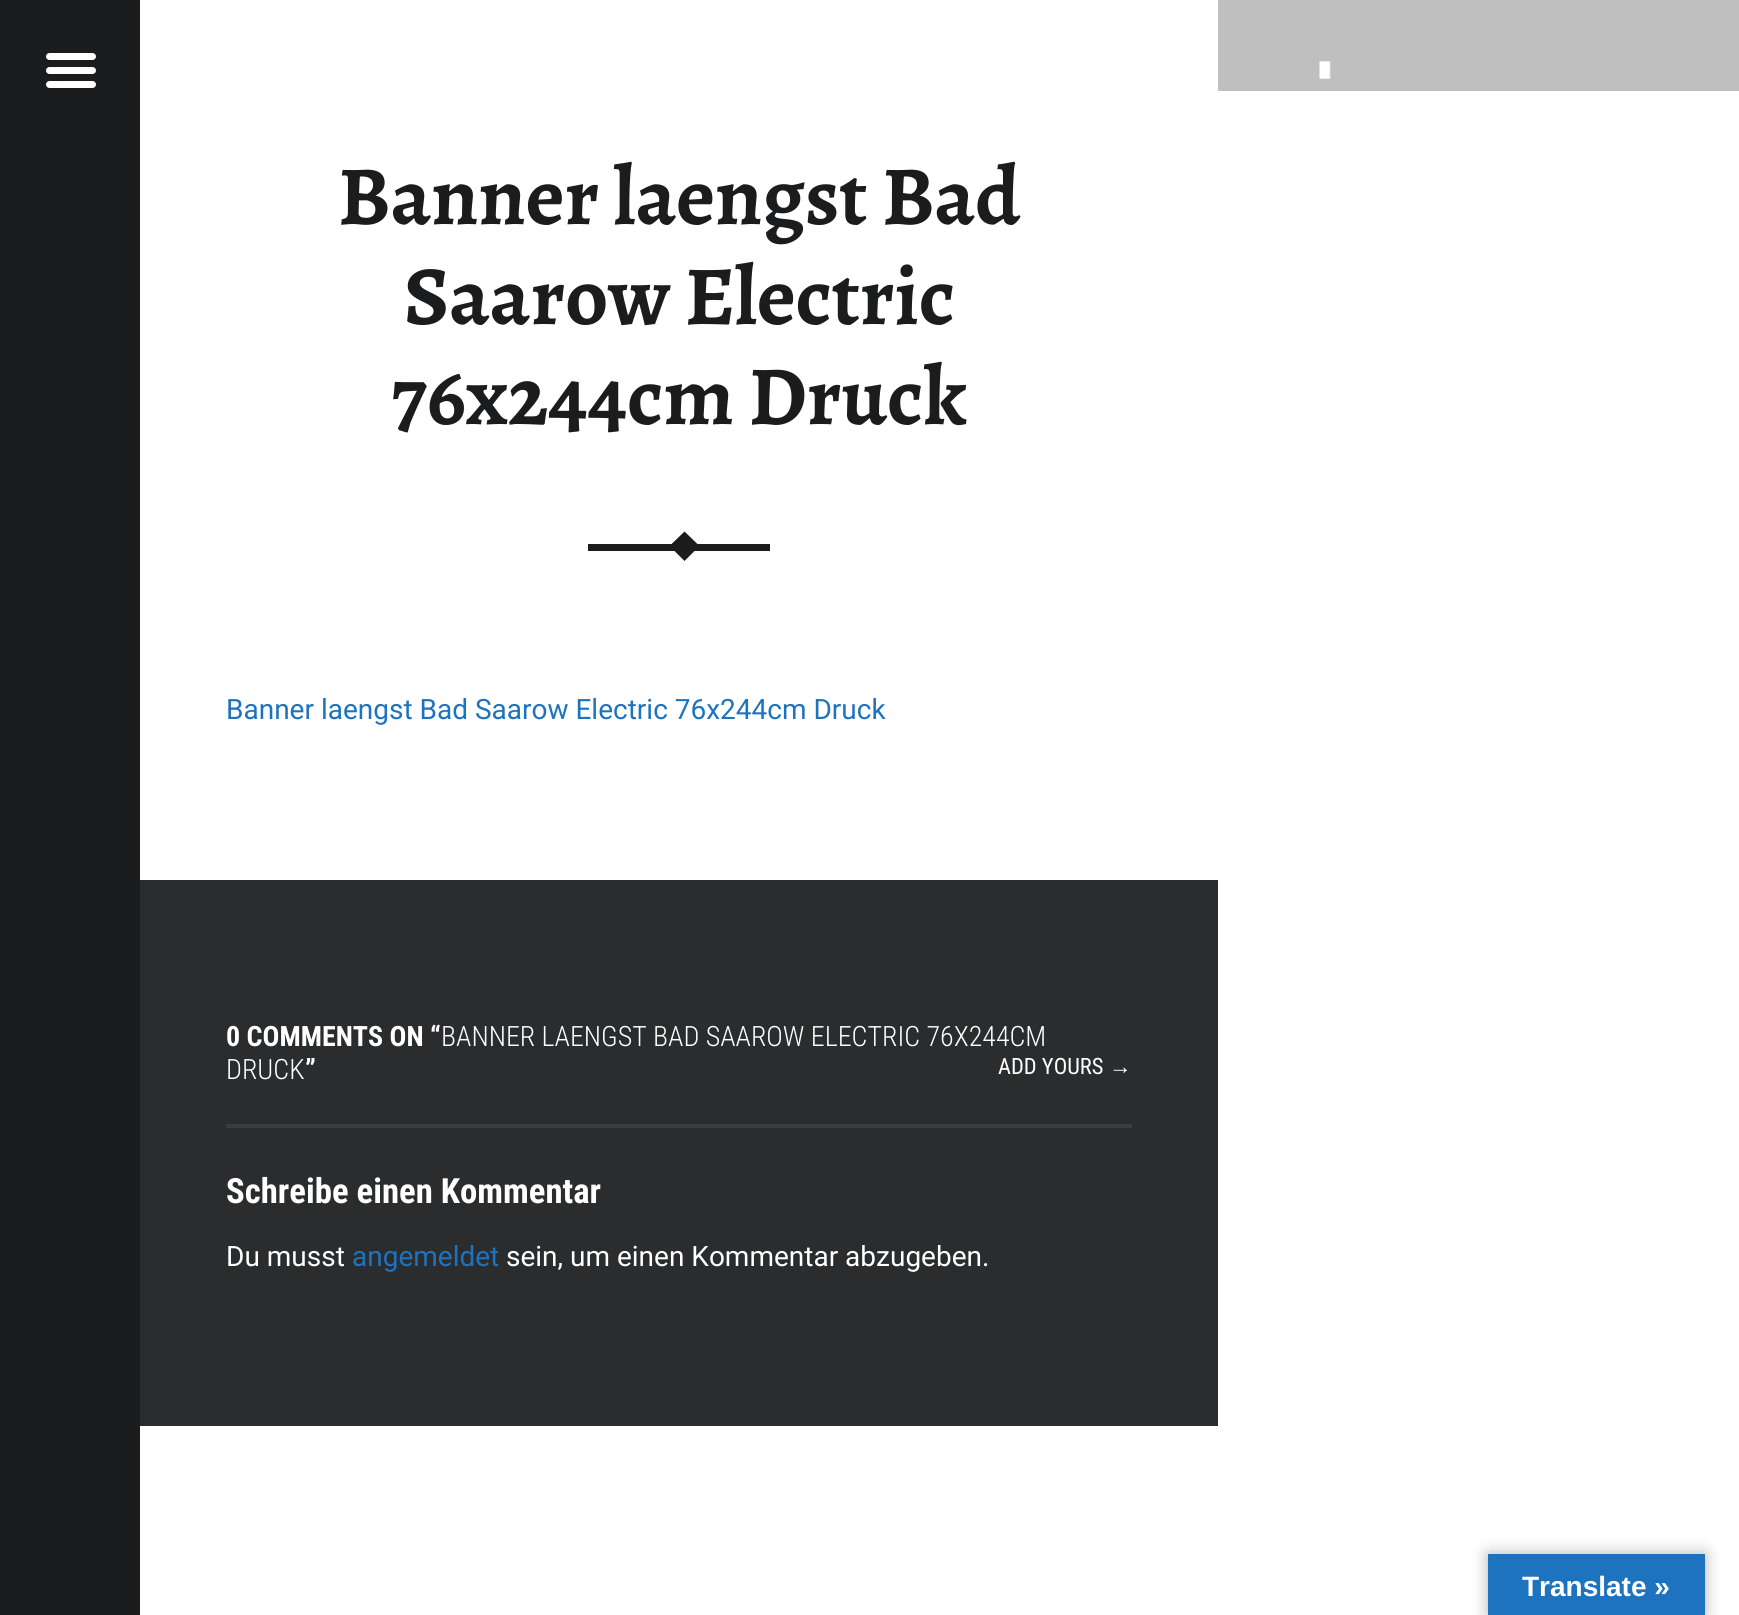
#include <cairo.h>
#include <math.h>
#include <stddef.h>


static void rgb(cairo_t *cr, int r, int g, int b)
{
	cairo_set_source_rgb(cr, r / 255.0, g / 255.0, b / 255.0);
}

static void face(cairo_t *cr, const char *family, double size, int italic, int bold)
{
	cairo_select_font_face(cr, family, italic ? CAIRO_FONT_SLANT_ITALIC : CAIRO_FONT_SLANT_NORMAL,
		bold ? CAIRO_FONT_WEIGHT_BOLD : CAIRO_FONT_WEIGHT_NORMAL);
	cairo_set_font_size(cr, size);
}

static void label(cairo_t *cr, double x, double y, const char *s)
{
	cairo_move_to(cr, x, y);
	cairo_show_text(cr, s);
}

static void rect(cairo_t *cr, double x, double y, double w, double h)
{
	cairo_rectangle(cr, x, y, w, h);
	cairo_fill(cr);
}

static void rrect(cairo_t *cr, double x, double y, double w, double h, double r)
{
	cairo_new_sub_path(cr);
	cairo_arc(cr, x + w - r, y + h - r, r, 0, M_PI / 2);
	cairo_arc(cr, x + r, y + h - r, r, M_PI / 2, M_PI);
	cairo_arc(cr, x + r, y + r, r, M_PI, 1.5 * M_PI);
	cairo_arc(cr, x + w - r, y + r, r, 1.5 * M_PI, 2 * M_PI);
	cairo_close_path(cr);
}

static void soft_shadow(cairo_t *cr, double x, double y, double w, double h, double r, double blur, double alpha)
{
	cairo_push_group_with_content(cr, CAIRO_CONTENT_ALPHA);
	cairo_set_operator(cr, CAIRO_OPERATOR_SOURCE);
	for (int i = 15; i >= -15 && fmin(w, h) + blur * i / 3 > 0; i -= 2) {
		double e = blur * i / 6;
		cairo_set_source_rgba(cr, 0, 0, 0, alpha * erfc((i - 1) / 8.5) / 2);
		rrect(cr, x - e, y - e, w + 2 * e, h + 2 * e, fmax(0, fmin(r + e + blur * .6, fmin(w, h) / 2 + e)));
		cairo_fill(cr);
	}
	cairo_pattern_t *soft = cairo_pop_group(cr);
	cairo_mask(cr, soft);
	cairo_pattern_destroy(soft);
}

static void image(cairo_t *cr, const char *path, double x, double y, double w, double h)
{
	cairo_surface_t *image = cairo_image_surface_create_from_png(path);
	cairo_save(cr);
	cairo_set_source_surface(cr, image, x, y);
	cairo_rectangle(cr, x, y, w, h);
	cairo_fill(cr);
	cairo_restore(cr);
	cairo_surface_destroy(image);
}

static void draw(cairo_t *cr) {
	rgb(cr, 255, 255, 255);
	cairo_paint(cr);
	rgb(cr, 26, 28, 30);
	rect(cr, 0, 0, 140, 1615);
	rgb(cr, 255, 255, 255);
	rrect(cr, 46, 53, 50, 7, 3.5);
	cairo_fill(cr);
	rrect(cr, 46, 67, 50, 7, 3.5);
	cairo_fill(cr);
	rrect(cr, 46, 81, 50, 7, 3.5);
	cairo_fill(cr);
	rgb(cr, 191, 191, 191);
	rect(cr, 1218, 0, 521, 91);
	image(cr, "image0.png", 1319, 61, 12, 18);
	face(cr, "Alegreya", 84, 0, 1);
	rgb(cr, 26, 28, 30);
	label(cr, 338, 224, "Banner laengst Bad");
	label(cr, 404, 324, "Saarow Electric");
	label(cr, 391, 424, "76x244cm Druck");
	rect(cr, 588, 544, 182, 7);
	cairo_new_path(cr);
	cairo_move_to(cr, 684.5, 531.5);
	cairo_line_to(cr, 699.5, 546);
	cairo_line_to(cr, 684.5, 561);
	cairo_line_to(cr, 669.5, 546);
	cairo_close_path(cr);
	cairo_fill(cr);
	face(cr, "Roboto", 28, 0, 0);
	rgb(cr, 30, 115, 190);
	label(cr, 226, 719, "Banner laengst Bad Saarow Electric 76x244cm Druck");
	rgb(cr, 42, 44, 46);
	rect(cr, 140, 880, 1078, 546);
	face(cr, "Roboto Condensed", 28, 0, 1);
	rgb(cr, 255, 255, 255);
	label(cr, 226, 1046, "0 COMMENTS ON “");
	face(cr, "Roboto Condensed Light", 28, 0, 0);
	label(cr, 441, 1046, "BANNER LAENGST BAD SAAROW ELECTRIC 76X244CM");
	label(cr, 226, 1079, "DRUCK");
	face(cr, "Roboto Condensed", 28, 0, 1);
	label(cr, 305, 1079, "”");
	face(cr, "Roboto Condensed", 22.5, 0, 0);
	label(cr, 998, 1074, "ADD YOURS");
	face(cr, "Liberation Sans", 22.5, 0, 0);
	label(cr, 1109, 1074, "→");
	rgb(cr, 58, 60, 62);
	rect(cr, 226, 1124, 906, 4);
	face(cr, "Roboto Condensed", 34.75, 0, 1);
	rgb(cr, 255, 255, 255);
	label(cr, 226, 1203, "Schreibe einen Kommentar");
	face(cr, "Roboto", 28, 0, 0);
	label(cr, 226, 1266, "Du musst");
	rgb(cr, 30, 115, 190);
	label(cr, 352, 1266, "angemeldet");
	rgb(cr, 255, 255, 255);
	label(cr, 506, 1266, "sein, um einen Kommentar abzugeben.");
	rgb(cr, 0, 0, 0);
	soft_shadow(cr, 1488, 1554, 217, 61, 0, 8, 0.3);
	rgb(cr, 30, 115, 190);
	rect(cr, 1488, 1554, 217, 61);
	face(cr, "Liberation Sans", 28, 0, 1);
	rgb(cr, 255, 255, 255);
	label(cr, 1522, 1596, "Translate »");
}

int main(void) {
	cairo_surface_t *surface = cairo_image_surface_create(CAIRO_FORMAT_RGB24, 1739, 1615);
	cairo_t *cr = cairo_create(surface);
	cairo_font_options_t *options = cairo_font_options_create();
	cairo_font_options_set_hint_metrics(options, CAIRO_HINT_METRICS_OFF);
	cairo_font_options_set_hint_style(options, CAIRO_HINT_STYLE_NONE);
	cairo_set_font_options(cr, options);
	cairo_set_miter_limit(cr, 4);
	draw(cr);
	cairo_surface_write_to_png(surface, "render.png");
	cairo_font_options_destroy(options);
	cairo_destroy(cr);
	cairo_surface_destroy(surface);
	return 0;
}
